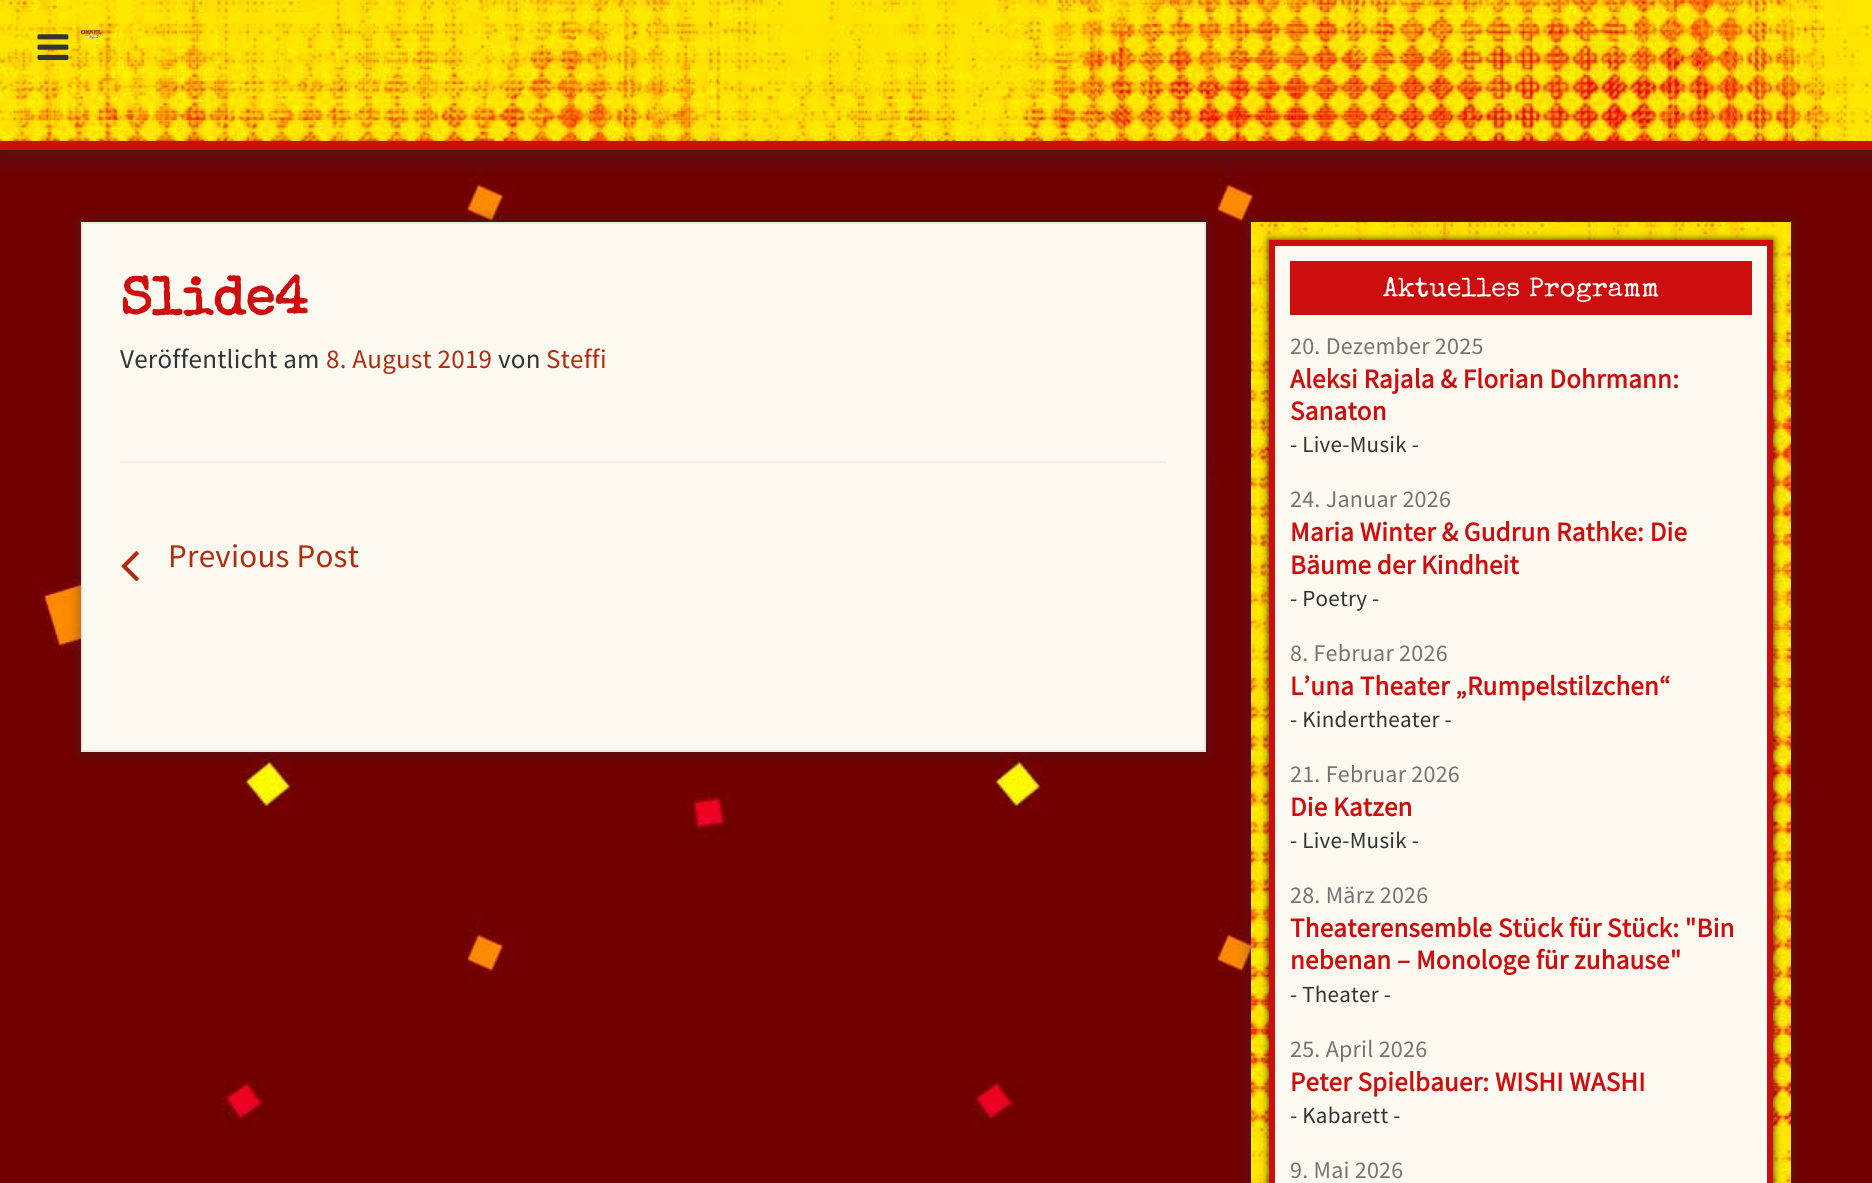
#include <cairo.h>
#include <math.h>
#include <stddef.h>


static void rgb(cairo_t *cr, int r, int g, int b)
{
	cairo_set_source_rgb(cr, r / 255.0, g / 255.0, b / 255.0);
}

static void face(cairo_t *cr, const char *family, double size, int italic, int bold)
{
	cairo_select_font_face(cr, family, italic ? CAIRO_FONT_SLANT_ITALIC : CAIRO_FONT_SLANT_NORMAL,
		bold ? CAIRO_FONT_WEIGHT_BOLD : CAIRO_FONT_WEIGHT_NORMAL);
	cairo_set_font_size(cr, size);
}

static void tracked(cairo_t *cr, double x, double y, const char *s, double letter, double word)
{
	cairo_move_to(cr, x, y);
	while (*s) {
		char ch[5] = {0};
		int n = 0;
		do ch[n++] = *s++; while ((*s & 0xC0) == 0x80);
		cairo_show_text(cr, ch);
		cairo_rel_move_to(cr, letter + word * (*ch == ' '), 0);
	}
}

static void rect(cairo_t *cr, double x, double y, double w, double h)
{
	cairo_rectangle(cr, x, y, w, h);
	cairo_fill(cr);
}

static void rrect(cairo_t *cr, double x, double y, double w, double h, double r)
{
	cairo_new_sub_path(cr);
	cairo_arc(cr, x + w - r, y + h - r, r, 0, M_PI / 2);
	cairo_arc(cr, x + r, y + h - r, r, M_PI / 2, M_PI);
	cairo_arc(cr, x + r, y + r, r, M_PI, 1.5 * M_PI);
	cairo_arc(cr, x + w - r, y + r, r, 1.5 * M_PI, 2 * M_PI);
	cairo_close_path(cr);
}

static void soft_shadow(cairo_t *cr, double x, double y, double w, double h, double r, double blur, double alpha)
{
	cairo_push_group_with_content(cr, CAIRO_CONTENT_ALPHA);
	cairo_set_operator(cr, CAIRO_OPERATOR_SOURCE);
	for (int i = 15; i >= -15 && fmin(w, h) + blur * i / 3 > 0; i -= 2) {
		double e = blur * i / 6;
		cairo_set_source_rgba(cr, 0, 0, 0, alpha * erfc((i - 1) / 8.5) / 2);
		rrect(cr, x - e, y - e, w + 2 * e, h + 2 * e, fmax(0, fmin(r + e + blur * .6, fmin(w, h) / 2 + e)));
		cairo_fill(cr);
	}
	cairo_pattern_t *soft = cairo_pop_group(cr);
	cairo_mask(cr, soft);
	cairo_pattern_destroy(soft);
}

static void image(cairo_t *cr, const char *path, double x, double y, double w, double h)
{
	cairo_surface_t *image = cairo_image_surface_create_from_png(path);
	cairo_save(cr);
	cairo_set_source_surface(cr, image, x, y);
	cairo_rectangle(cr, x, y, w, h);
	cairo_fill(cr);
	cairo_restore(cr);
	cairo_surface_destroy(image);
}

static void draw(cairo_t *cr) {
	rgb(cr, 255, 255, 255);
	cairo_paint(cr);
	image(cr, "image0.png", 0, 150, 1872, 1033);
	rgb(cr, 39, 48, 57);
	soft_shadow(cr, 0, 0, 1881, 159, 0, 10, 0.4);
	image(cr, "image1.png", 0, 0, 1872, 141);
	rgb(cr, 204, 14, 14);
	rect(cr, 0, 141, 1872, 9);
	image(cr, "image2.png", 37, 34, 32, 26);
	image(cr, "image3.png", 81, 29, 23, 10);
	rgb(cr, 39, 48, 57);
	soft_shadow(cr, 81, 222, 1125, 530, 0, 7.5, 0.5);
	rgb(cr, 251, 249, 240);
	cairo_rectangle(cr, 82, 223, 1123, 528);
	cairo_fill_preserve(cr);
	rgb(cr, 234, 233, 225);
	cairo_stroke(cr);
	face(cr, "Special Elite", 54, 0, 1);
	rgb(cr, 204, 14, 14);
	tracked(cr, 120, 314, "Slide4", 0.25, 0);
	face(cr, "Source Sans Pro", 27, 0, 0);
	rgb(cr, 51, 51, 51);
	tracked(cr, 120, 368, "Veröffentlicht am", 0.25, 0);
	rgb(cr, 177, 44, 15);
	tracked(cr, 326, 368, "8. August 2019", 0.25, 0);
	rgb(cr, 51, 51, 51);
	tracked(cr, 498, 368, "von", 0.25, 0);
	rgb(cr, 177, 44, 15);
	tracked(cr, 546, 368, "Steffi", 0.25, 0);
	rgb(cr, 240, 239, 231);
	rect(cr, 120, 461, 1047, 2);
	image(cr, "image4.png", 121, 551, 18, 31);
	face(cr, "Source Sans Pro", 33, 0, 0);
	rgb(cr, 177, 44, 15);
	tracked(cr, 168, 567, "Previous Post", 0.25, 0);
	rgb(cr, 39, 48, 57);
	soft_shadow(cr, 1251, 222, 540, 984, 0, 7.5, 0.5);
	image(cr, "image5.png", 1251, 222, 540, 961);
	rgb(cr, 0, 0, 0);
	soft_shadow(cr, 1269, 240, 504, 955, 0, 4, 0.8);
	rgb(cr, 251, 249, 240);
	cairo_rectangle(cr, 1272, 243, 498, 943);
	cairo_fill_preserve(cr);
	rgb(cr, 204, 14, 14);
	cairo_set_line_width(cr, 6);
	cairo_stroke(cr);
	rect(cr, 1290, 261, 462, 54);
	face(cr, "Special Elite", 27, 0, 0);
	rgb(cr, 255, 255, 255);
	tracked(cr, 1383, 296, "Aktuelles Programm", 0.25, 0);
	face(cr, "Source Sans Pro", 24, 0, 0);
	rgb(cr, 119, 115, 115);
	tracked(cr, 1290, 354, "20. Dezember 2025", 0.25, 0);
	face(cr, "Source Sans Pro", 27, 0, 1);
	rgb(cr, 204, 14, 14);
	tracked(cr, 1290, 388, "Aleksi Rajala & Florian Dohrmann:", 0.25, 0);
	tracked(cr, 1290, 420, "Sanaton", 0.25, 0);
	face(cr, "Source Sans Pro", 23, 0, 0);
	rgb(cr, 51, 51, 51);
	tracked(cr, 1290, 452, "- Live-Musik -", 0.25, 0);
	face(cr, "Source Sans Pro", 24, 0, 0);
	rgb(cr, 119, 115, 115);
	tracked(cr, 1290, 507, "24. Januar 2026", 0.25, 0);
	face(cr, "Source Sans Pro", 27, 0, 1);
	rgb(cr, 204, 14, 14);
	tracked(cr, 1290, 541, "Maria Winter & Gudrun Rathke: Die", 0.25, 0);
	tracked(cr, 1290, 574, "Bäume der Kindheit", 0.25, 0);
	face(cr, "Source Sans Pro", 23, 0, 0);
	rgb(cr, 51, 51, 51);
	tracked(cr, 1290, 606, "- Poetry -", 0.25, 0);
	face(cr, "Source Sans Pro", 24, 0, 0);
	rgb(cr, 119, 115, 115);
	tracked(cr, 1290, 661, "8. Februar 2026", 0.25, 0);
	face(cr, "Source Sans Pro", 27, 0, 1);
	rgb(cr, 204, 14, 14);
	tracked(cr, 1290, 695, "L’una Theater „Rumpelstilzchen“", 0.25, 0);
	face(cr, "Source Sans Pro", 23, 0, 0);
	rgb(cr, 51, 51, 51);
	tracked(cr, 1290, 727, "- Kindertheater -", 0.25, 0);
	face(cr, "Source Sans Pro", 24, 0, 0);
	rgb(cr, 119, 115, 115);
	tracked(cr, 1290, 782, "21. Februar 2026", 0.25, 0);
	face(cr, "Source Sans Pro", 27, 0, 1);
	rgb(cr, 204, 14, 14);
	tracked(cr, 1290, 816, "Die Katzen", 0.25, 0);
	face(cr, "Source Sans Pro", 23, 0, 0);
	rgb(cr, 51, 51, 51);
	tracked(cr, 1290, 848, "- Live-Musik -", 0.25, 0);
	face(cr, "Source Sans Pro", 24, 0, 0);
	rgb(cr, 119, 115, 115);
	tracked(cr, 1290, 903, "28. März 2026", 0.25, 0);
	face(cr, "Source Sans Pro", 27, 0, 1);
	rgb(cr, 204, 14, 14);
	tracked(cr, 1290, 937, "Theaterensemble Stück für Stück: \"Bin", 0.25, 0);
	tracked(cr, 1290, 969, "nebenan – Monologe für zuhause\"", 0.25, 0);
	face(cr, "Source Sans Pro", 23, 0, 0);
	rgb(cr, 51, 51, 51);
	tracked(cr, 1290, 1002, "- Theater -", 0.25, 0);
	face(cr, "Source Sans Pro", 24, 0, 0);
	rgb(cr, 119, 115, 115);
	tracked(cr, 1290, 1057, "25. April 2026", 0.25, 0);
	face(cr, "Source Sans Pro", 27, 0, 1);
	rgb(cr, 204, 14, 14);
	tracked(cr, 1290, 1091, "Peter Spielbauer: WISHI WASHI", 0.25, 0);
	face(cr, "Source Sans Pro", 23, 0, 0);
	rgb(cr, 51, 51, 51);
	tracked(cr, 1290, 1123, "- Kabarett -", 0.25, 0);
	face(cr, "Source Sans Pro", 24, 0, 0);
	rgb(cr, 119, 115, 115);
	tracked(cr, 1290, 1178, "9. Mai 2026", 0.25, 0);
}

int main(void) {
	cairo_surface_t *surface = cairo_image_surface_create(CAIRO_FORMAT_RGB24, 1872, 1183);
	cairo_t *cr = cairo_create(surface);
	cairo_font_options_t *options = cairo_font_options_create();
	cairo_font_options_set_hint_metrics(options, CAIRO_HINT_METRICS_OFF);
	cairo_font_options_set_hint_style(options, CAIRO_HINT_STYLE_NONE);
	cairo_set_font_options(cr, options);
	cairo_set_miter_limit(cr, 4);
	draw(cr);
	cairo_surface_write_to_png(surface, "render.png");
	cairo_font_options_destroy(options);
	cairo_destroy(cr);
	cairo_surface_destroy(surface);
	return 0;
}
